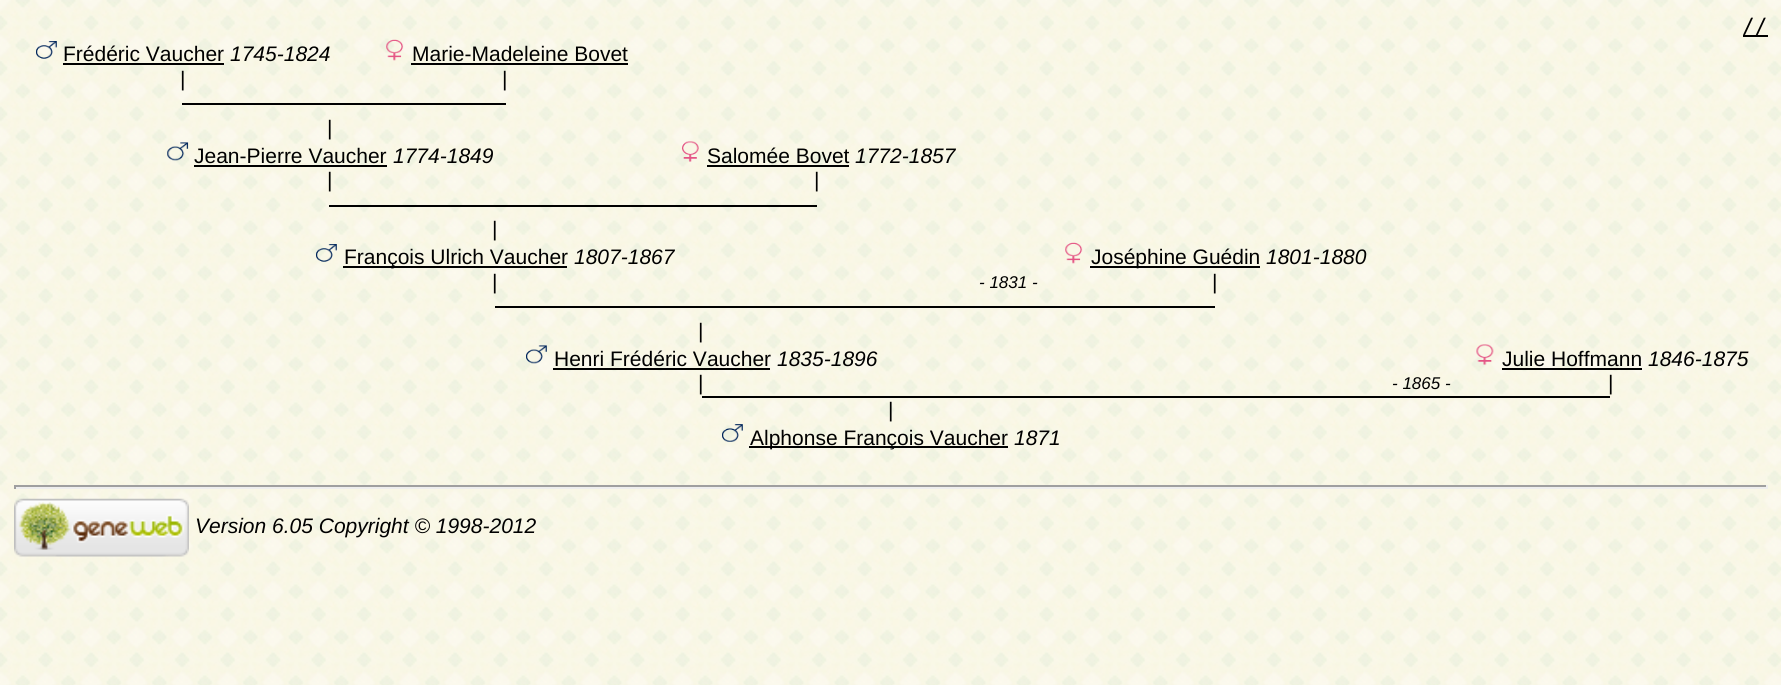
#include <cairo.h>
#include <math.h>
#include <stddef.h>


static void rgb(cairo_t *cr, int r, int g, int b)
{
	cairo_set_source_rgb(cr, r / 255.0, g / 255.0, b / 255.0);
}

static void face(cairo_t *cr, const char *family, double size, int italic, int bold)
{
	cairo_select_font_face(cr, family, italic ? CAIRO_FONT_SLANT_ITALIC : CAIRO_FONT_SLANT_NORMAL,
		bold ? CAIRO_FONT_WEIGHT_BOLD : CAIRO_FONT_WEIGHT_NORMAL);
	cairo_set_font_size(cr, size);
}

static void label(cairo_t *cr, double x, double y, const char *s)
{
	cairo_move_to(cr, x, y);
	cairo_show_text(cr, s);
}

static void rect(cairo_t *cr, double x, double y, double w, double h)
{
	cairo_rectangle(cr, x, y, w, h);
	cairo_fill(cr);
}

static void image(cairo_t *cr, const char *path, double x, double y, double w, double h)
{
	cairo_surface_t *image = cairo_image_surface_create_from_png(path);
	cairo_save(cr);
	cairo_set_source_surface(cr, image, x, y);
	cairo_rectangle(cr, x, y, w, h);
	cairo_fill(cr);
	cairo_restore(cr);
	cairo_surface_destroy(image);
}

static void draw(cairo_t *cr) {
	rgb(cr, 255, 255, 255);
	cairo_paint(cr);
	image(cr, "image0.png", 0, 0, 1781, 685);
	face(cr, "DejaVu Sans Mono", 21, 0, 0);
	rgb(cr, 0, 0, 0);
	label(cr, 1742, 33, "//");
	rect(cr, 1743, 35, 25, 2);
	image(cr, "image1.png", 36, 41, 21, 18);
	face(cr, "Liberation Sans", 21, 0, 0);
	label(cr, 63, 61, "Frédéric Vaucher");
	rect(cr, 63, 63, 161, 2);
	face(cr, "Liberation Sans", 21, 1, 0);
	label(cr, 230, 61, "1745-1824");
	image(cr, "image2.png", 386, 39, 18, 22);
	face(cr, "Liberation Sans", 21, 0, 0);
	label(cr, 412, 61, "Marie-Madeleine Bovet");
	rect(cr, 411, 63, 217, 2);
	label(cr, 180, 86, "|");
	label(cr, 502, 86, "|");
	rect(cr, 182, 103, 324, 2);
	label(cr, 327, 135, "|");
	image(cr, "image3.png", 167, 142, 22, 19);
	label(cr, 194, 163, "Jean-Pierre Vaucher");
	rect(cr, 194, 165, 193, 2);
	face(cr, "Liberation Sans", 21, 1, 0);
	label(cr, 393, 163, "1774-1849");
	image(cr, "image4.png", 682, 141, 17, 21);
	face(cr, "Liberation Sans", 21, 0, 0);
	label(cr, 707, 163, "Salomée Bovet");
	rect(cr, 707, 165, 142, 2);
	face(cr, "Liberation Sans", 21, 1, 0);
	label(cr, 855, 163, "1772-1857");
	face(cr, "Liberation Sans", 21, 0, 0);
	label(cr, 327, 187, "|");
	label(cr, 814, 187, "|");
	rect(cr, 329, 205, 488, 2);
	label(cr, 492, 236, "|");
	image(cr, "image5.png", 316, 244, 21, 18);
	rect(cr, 343, 266, 224, 2);
	label(cr, 344, 264, "François Ulrich Vaucher");
	face(cr, "Liberation Sans", 21, 1, 0);
	label(cr, 574, 264, "1807-1867");
	image(cr, "image6.png", 1065, 242, 18, 22);
	rect(cr, 1090, 266, 170, 2);
	face(cr, "Liberation Sans", 21, 0, 0);
	label(cr, 1091, 264, "Joséphine Guédin");
	face(cr, "Liberation Sans", 21, 1, 0);
	label(cr, 1266, 264, "1801-1880");
	face(cr, "Liberation Sans", 21, 0, 0);
	label(cr, 492, 289, "|");
	face(cr, "Liberation Sans", 17, 1, 0);
	label(cr, 979, 288, "- 1831 -");
	face(cr, "Liberation Sans", 21, 0, 0);
	label(cr, 1212, 289, "|");
	rect(cr, 495, 306, 720, 2);
	label(cr, 698, 338, "|");
	image(cr, "image7.png", 526, 345, 21, 19);
	label(cr, 554, 366, "Henri Frédéric Vaucher");
	rect(cr, 553, 368, 217, 2);
	face(cr, "Liberation Sans", 21, 1, 0);
	label(cr, 777, 366, "1835-1896");
	image(cr, "image8.png", 1476, 344, 18, 21);
	face(cr, "Liberation Sans", 21, 0, 0);
	label(cr, 1502, 366, "Julie Hoffmann");
	rect(cr, 1502, 368, 140, 2);
	face(cr, "Liberation Sans", 21, 1, 0);
	label(cr, 1648, 366, "1846-1875");
	face(cr, "Liberation Sans", 21, 0, 0);
	label(cr, 698, 390, "|");
	face(cr, "Liberation Sans", 17, 1, 0);
	label(cr, 1392, 389, "- 1865 -");
	face(cr, "Liberation Sans", 21, 0, 0);
	label(cr, 1608, 390, "|");
	rect(cr, 702, 396, 908, 2);
	label(cr, 888, 417, "|");
	image(cr, "image9.png", 722, 424, 21, 18);
	rect(cr, 749, 446, 259, 2);
	label(cr, 750, 445, "Alphonse François Vaucher");
	face(cr, "Liberation Sans", 21, 1, 0);
	label(cr, 1014, 445, "1871");
	rgb(cr, 159, 159, 159);
	rect(cr, 14, 485, 1754, 2);
	rgb(cr, 238, 238, 238);
	rect(cr, 1766, 485, 2, 4);
	rect(cr, 14, 487, 1754, 2);
	rgb(cr, 159, 159, 159);
	rect(cr, 14, 485, 2, 4);
	image(cr, "image10.png", 14, 498, 175, 59);
	rgb(cr, 0, 0, 0);
	label(cr, 195, 533, "Version 6.05 Copyright © 1998-2012");
}

int main(void) {
	cairo_surface_t *surface = cairo_image_surface_create(CAIRO_FORMAT_RGB24, 1781, 685);
	cairo_t *cr = cairo_create(surface);
	cairo_font_options_t *options = cairo_font_options_create();
	cairo_font_options_set_hint_metrics(options, CAIRO_HINT_METRICS_OFF);
	cairo_font_options_set_hint_style(options, CAIRO_HINT_STYLE_NONE);
	cairo_set_font_options(cr, options);
	cairo_set_miter_limit(cr, 4);
	draw(cr);
	cairo_surface_write_to_png(surface, "render.png");
	cairo_font_options_destroy(options);
	cairo_destroy(cr);
	cairo_surface_destroy(surface);
	return 0;
}
